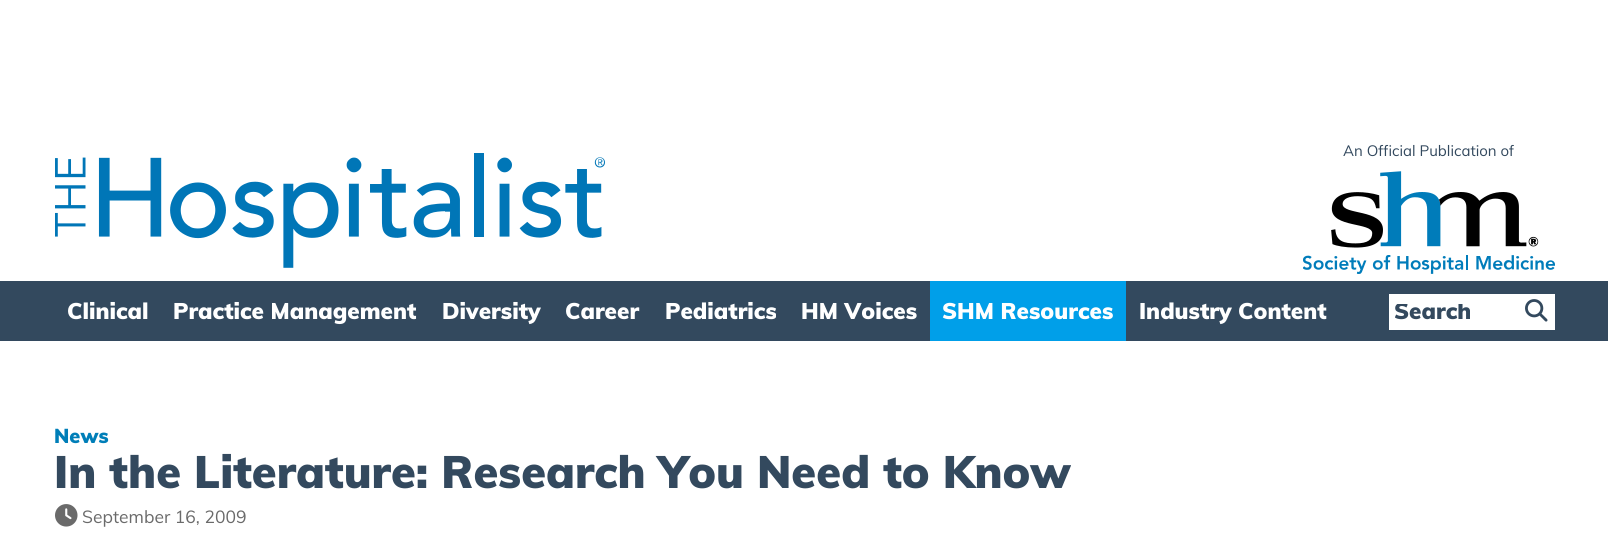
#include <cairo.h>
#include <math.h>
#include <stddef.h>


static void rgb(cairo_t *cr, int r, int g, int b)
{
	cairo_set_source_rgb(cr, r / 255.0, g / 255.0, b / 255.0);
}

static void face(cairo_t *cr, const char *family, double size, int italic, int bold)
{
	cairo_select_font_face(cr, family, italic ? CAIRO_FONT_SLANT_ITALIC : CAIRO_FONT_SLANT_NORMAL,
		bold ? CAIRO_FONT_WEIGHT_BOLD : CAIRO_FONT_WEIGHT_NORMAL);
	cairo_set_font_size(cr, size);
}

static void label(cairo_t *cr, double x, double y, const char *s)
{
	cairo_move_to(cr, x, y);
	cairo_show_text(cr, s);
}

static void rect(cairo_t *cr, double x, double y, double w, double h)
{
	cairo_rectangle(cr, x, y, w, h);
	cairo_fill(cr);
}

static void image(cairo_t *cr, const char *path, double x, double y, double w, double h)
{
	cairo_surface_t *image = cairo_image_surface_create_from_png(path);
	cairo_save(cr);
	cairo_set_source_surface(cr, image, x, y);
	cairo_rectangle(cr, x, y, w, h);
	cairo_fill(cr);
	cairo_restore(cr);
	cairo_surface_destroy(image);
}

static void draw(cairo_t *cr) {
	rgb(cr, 255, 255, 255);
	cairo_paint(cr);
	face(cr, "Muli", 15, 0, 0);
	rgb(cr, 51, 73, 94);
	label(cr, 1343, 156, "An Official Publication of");
	image(cr, "image0.png", 1303, 171, 252, 103);
	image(cr, "image1.png", 55, 153, 550, 115);
	rect(cr, 0, 281, 1608, 60);
	face(cr, "Muli Black", 22.5, 0, 0);
	rgb(cr, 255, 255, 255);
	label(cr, 67, 319, "Clinical");
	label(cr, 173, 319, "Practice Management");
	label(cr, 442, 319, "Diversity");
	label(cr, 565, 319, "Career");
	label(cr, 665, 319, "Pediatrics");
	label(cr, 801, 319, "HM Voices");
	rgb(cr, 0, 159, 233);
	rect(cr, 930, 281, 196, 60);
	rgb(cr, 255, 255, 255);
	label(cr, 942, 319, "SHM Resources");
	label(cr, 1139, 319, "Industry Content");
	rect(cr, 1389, 294, 166, 36);
	cairo_save(cr);
	cairo_rectangle(cr, 1395, 304, 116, 22);
	cairo_clip(cr);
	rgb(cr, 51, 73, 94);
	label(cr, 1394, 319, "Search");
	cairo_restore(cr);
	image(cr, "image2.png", 1525, 299, 23, 23);
	face(cr, "Muli Black", 20, 0, 0);
	rgb(cr, 0, 126, 184);
	label(cr, 54, 443, "News");
	face(cr, "Muli Black", 45, 0, 0);
	rgb(cr, 51, 73, 94);
	label(cr, 54, 488, "In the Literature: Research You Need to Know");
	image(cr, "image3.png", 55, 504, 23, 23);
	face(cr, "Muli", 17.5, 0, 0);
	rgb(cr, 106, 106, 106);
	label(cr, 82, 523, "September 16, 2009");
}

int main(void) {
	cairo_surface_t *surface = cairo_image_surface_create(CAIRO_FORMAT_RGB24, 1608, 559);
	cairo_t *cr = cairo_create(surface);
	cairo_font_options_t *options = cairo_font_options_create();
	cairo_font_options_set_hint_metrics(options, CAIRO_HINT_METRICS_OFF);
	cairo_font_options_set_hint_style(options, CAIRO_HINT_STYLE_NONE);
	cairo_set_font_options(cr, options);
	cairo_set_miter_limit(cr, 4);
	draw(cr);
	cairo_surface_write_to_png(surface, "render.png");
	cairo_font_options_destroy(options);
	cairo_destroy(cr);
	cairo_surface_destroy(surface);
	return 0;
}
